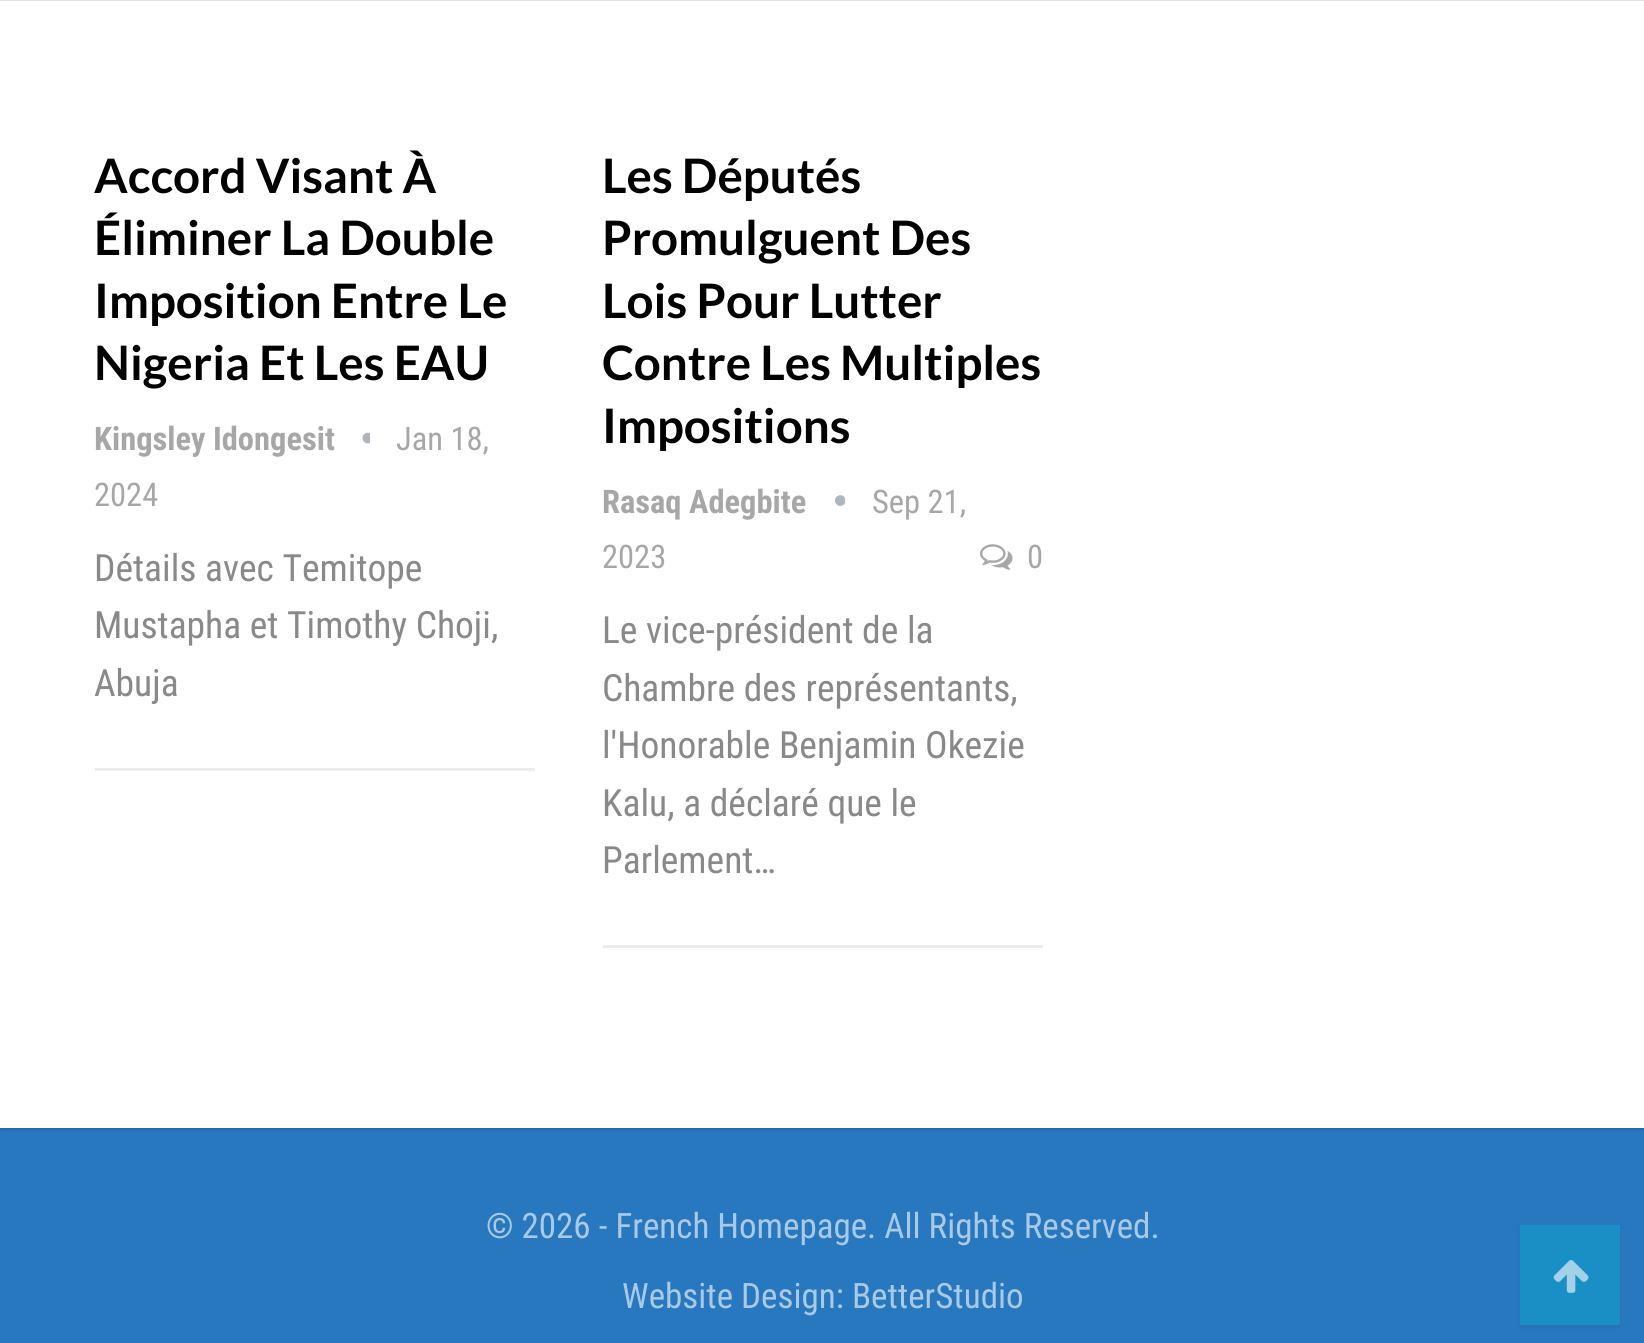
#include <cairo.h>
#include <math.h>
#include <stddef.h>


static void rgb(cairo_t *cr, int r, int g, int b)
{
	cairo_set_source_rgb(cr, r / 255.0, g / 255.0, b / 255.0);
}

static void face(cairo_t *cr, const char *family, double size, int italic, int bold)
{
	cairo_select_font_face(cr, family, italic ? CAIRO_FONT_SLANT_ITALIC : CAIRO_FONT_SLANT_NORMAL,
		bold ? CAIRO_FONT_WEIGHT_BOLD : CAIRO_FONT_WEIGHT_NORMAL);
	cairo_set_font_size(cr, size);
}

static void label(cairo_t *cr, double x, double y, const char *s)
{
	cairo_move_to(cr, x, y);
	cairo_show_text(cr, s);
}

static void rect(cairo_t *cr, double x, double y, double w, double h)
{
	cairo_rectangle(cr, x, y, w, h);
	cairo_fill(cr);
}

static void rrect(cairo_t *cr, double x, double y, double w, double h, double r)
{
	cairo_new_sub_path(cr);
	cairo_arc(cr, x + w - r, y + h - r, r, 0, M_PI / 2);
	cairo_arc(cr, x + r, y + h - r, r, M_PI / 2, M_PI);
	cairo_arc(cr, x + r, y + r, r, M_PI, 1.5 * M_PI);
	cairo_arc(cr, x + w - r, y + r, r, 1.5 * M_PI, 2 * M_PI);
	cairo_close_path(cr);
}

static void soft_shadow(cairo_t *cr, double x, double y, double w, double h, double r, double blur, double alpha)
{
	cairo_push_group_with_content(cr, CAIRO_CONTENT_ALPHA);
	cairo_set_operator(cr, CAIRO_OPERATOR_SOURCE);
	for (int i = 15; i >= -15 && fmin(w, h) + blur * i / 3 > 0; i -= 2) {
		double e = blur * i / 6;
		cairo_set_source_rgba(cr, 0, 0, 0, alpha * erfc((i - 1) / 8.5) / 2);
		rrect(cr, x - e, y - e, w + 2 * e, h + 2 * e, fmax(0, fmin(r + e + blur * .6, fmin(w, h) / 2 + e)));
		cairo_fill(cr);
	}
	cairo_pattern_t *soft = cairo_pop_group(cr);
	cairo_mask(cr, soft);
	cairo_pattern_destroy(soft);
}

static void image(cairo_t *cr, const char *path, double x, double y, double w, double h)
{
	cairo_surface_t *image = cairo_image_surface_create_from_png(path);
	cairo_save(cr);
	cairo_set_source_surface(cr, image, x, y);
	cairo_rectangle(cr, x, y, w, h);
	cairo_fill(cr);
	cairo_restore(cr);
	cairo_surface_destroy(image);
}

static void draw(cairo_t *cr) {
	rgb(cr, 40, 120, 191);
	cairo_paint(cr);
	rgb(cr, 0, 0, 0);
	soft_shadow(cr, 0, -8, 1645, 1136, 0, 2.5, 0.27);
	rgb(cr, 255, 255, 255);
	rect(cr, 0, 1, 1644, 1127);
	rgb(cr, 229, 229, 229);
	rect(cr, 0, 0, 1644, 1);
	face(cr, "Lato", 47.5, 0, 1);
	rgb(cr, 1, 1, 1);
	label(cr, 94, 193, "Accord Visant À");
	label(cr, 94, 255, "Éliminer La Double");
	label(cr, 94, 318, "Imposition Entre Le");
	label(cr, 94, 380, "Nigeria Et Les EAU");
	face(cr, "Roboto Condensed", 32.5, 0, 1);
	rgb(cr, 167, 167, 167);
	label(cr, 94, 450, "Kingsley Idongesit");
	image(cr, "image0.png", 362, 432, 8, 12);
	face(cr, "Roboto Condensed", 32.5, 0, 0);
	label(cr, 396, 450, "Jan 18,");
	label(cr, 94, 506, "2024");
	rgb(cr, 237, 237, 237);
	rect(cr, 95, 768, 440, 3);
	face(cr, "Roboto Condensed", 37.5, 0, 0);
	rgb(cr, 137, 137, 137);
	label(cr, 94, 581, "Détails avec Temitope");
	label(cr, 94, 638, "Mustapha et Timothy Choji,");
	label(cr, 94, 696, "Abuja");
	face(cr, "Lato", 47.5, 0, 1);
	rgb(cr, 1, 1, 1);
	label(cr, 602, 193, "Les Députés");
	label(cr, 602, 255, "Promulguent Des");
	label(cr, 602, 318, "Lois Pour Lutter");
	label(cr, 602, 380, "Contre Les Multiples");
	label(cr, 602, 443, "Impositions");
	face(cr, "Roboto Condensed", 32.5, 0, 1);
	rgb(cr, 167, 167, 167);
	label(cr, 602, 513, "Rasaq Adegbite");
	image(cr, "image1.png", 835, 495, 10, 11);
	face(cr, "Roboto Condensed", 32.5, 0, 0);
	label(cr, 872, 513, "Sep 21,");
	label(cr, 602, 568, "2023");
	image(cr, "image2.png", 980, 544, 33, 26);
	label(cr, 1027, 568, "0");
	rgb(cr, 237, 237, 237);
	rect(cr, 603, 945, 440, 3);
	face(cr, "Roboto Condensed", 37.5, 0, 0);
	rgb(cr, 137, 137, 137);
	label(cr, 602, 643, "Le vice-président de la");
	label(cr, 602, 701, "Chambre des représentants,");
	label(cr, 602, 758, "l'Honorable Benjamin Okezie");
	label(cr, 602, 816, "Kalu, a déclaré que le");
	label(cr, 602, 873, "Parlement…");
	face(cr, "Roboto Condensed", 35, 0, 0);
	rgb(cr, 169, 201, 229);
	label(cr, 486, 1238, "© 2026 - French Homepage. All Rights Reserved.");
	label(cr, 622, 1308, "Website Design: BetterStudio");
	rgb(cr, 16, 48, 76);
	soft_shadow(cr, 1520, 1228, 100, 100, 0, 2.5, 0.09);
	rgb(cr, 26, 143, 197);
	rect(cr, 1520, 1225, 100, 100);
	image(cr, "image3.png", 1553, 1260, 36, 33);
}

int main(void) {
	cairo_surface_t *surface = cairo_image_surface_create(CAIRO_FORMAT_RGB24, 1644, 1343);
	cairo_t *cr = cairo_create(surface);
	cairo_font_options_t *options = cairo_font_options_create();
	cairo_font_options_set_hint_metrics(options, CAIRO_HINT_METRICS_OFF);
	cairo_font_options_set_hint_style(options, CAIRO_HINT_STYLE_NONE);
	cairo_set_font_options(cr, options);
	cairo_set_miter_limit(cr, 4);
	draw(cr);
	cairo_surface_write_to_png(surface, "render.png");
	cairo_font_options_destroy(options);
	cairo_destroy(cr);
	cairo_surface_destroy(surface);
	return 0;
}
